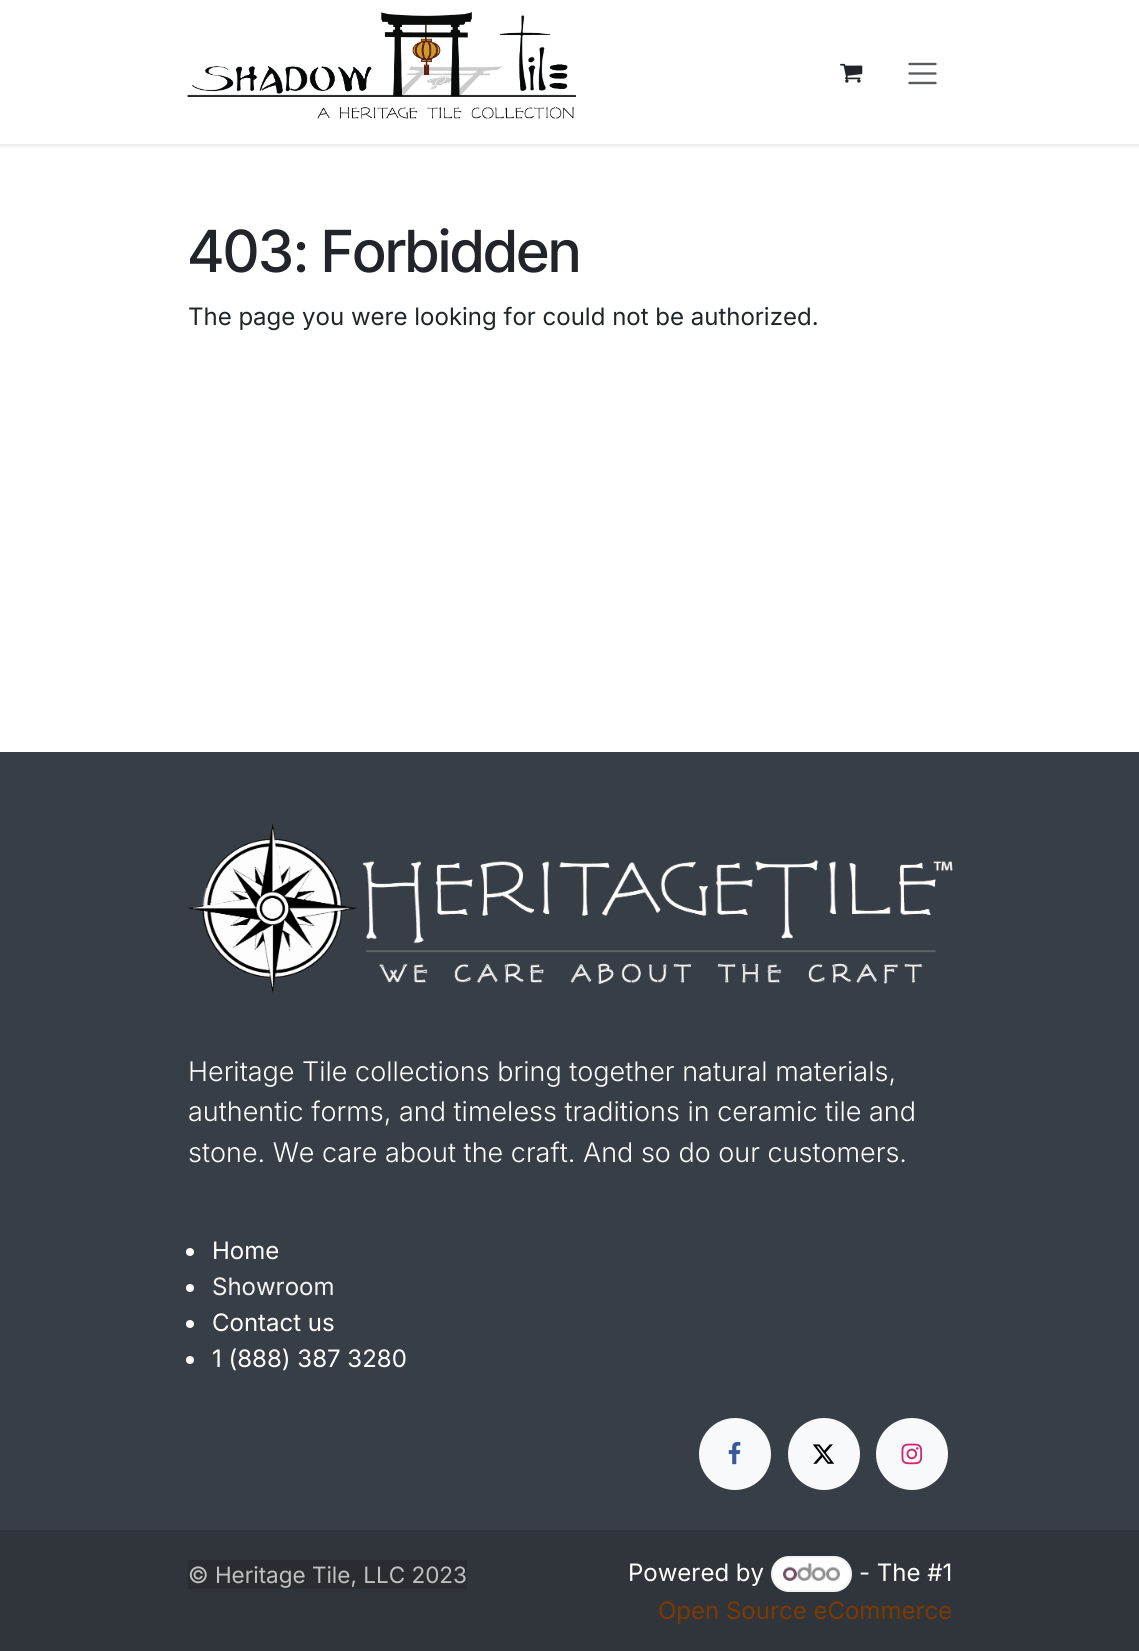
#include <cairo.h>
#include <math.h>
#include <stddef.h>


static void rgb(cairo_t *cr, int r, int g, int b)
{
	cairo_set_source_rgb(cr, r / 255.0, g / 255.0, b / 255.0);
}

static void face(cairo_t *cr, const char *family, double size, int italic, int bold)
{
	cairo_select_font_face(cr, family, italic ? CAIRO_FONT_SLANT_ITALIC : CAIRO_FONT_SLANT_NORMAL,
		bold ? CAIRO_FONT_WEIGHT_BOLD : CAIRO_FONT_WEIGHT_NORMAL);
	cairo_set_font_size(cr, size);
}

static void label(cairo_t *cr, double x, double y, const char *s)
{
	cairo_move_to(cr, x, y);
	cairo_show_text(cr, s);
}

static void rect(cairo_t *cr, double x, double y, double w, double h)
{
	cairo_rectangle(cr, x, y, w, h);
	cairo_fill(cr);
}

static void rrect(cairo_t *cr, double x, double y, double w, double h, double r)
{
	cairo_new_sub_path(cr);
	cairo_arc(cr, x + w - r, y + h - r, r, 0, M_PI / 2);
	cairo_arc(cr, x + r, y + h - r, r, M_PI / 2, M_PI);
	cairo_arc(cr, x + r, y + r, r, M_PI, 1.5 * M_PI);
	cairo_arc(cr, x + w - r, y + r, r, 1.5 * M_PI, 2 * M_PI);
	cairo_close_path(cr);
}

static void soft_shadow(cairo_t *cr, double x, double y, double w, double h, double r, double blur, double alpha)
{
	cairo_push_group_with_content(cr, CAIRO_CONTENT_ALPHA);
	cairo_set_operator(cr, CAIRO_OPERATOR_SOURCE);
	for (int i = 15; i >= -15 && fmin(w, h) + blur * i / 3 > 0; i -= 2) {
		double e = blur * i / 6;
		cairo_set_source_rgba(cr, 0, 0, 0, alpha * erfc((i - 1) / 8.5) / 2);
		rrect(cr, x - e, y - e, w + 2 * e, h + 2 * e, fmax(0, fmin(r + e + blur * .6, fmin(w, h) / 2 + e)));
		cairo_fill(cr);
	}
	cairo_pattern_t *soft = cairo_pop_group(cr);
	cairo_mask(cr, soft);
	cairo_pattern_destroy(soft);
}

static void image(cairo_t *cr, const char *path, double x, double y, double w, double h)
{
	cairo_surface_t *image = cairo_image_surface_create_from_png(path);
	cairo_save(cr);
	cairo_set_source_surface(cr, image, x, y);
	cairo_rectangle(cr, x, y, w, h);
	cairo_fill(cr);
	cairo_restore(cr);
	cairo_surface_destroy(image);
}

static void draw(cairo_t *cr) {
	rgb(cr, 255, 255, 255);
	cairo_paint(cr);
	cairo_save(cr);
	cairo_rectangle(cr, 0, 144, 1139, 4);
	cairo_clip(cr);
	rgb(cr, 0, 0, 0);
	soft_shadow(cr, 0, 2, 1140, 144, 0, 2, 0.1);
	cairo_restore(cr);
	image(cr, "image0.png", 187, 12, 389, 107);
	image(cr, "image1.png", 840, 63, 23, 20);
	cairo_new_path(cr);
	cairo_move_to(cr, 909.5, 64);
	cairo_line_to(cr, 935.5, 64);
	cairo_move_to(cr, 909.5, 73.5);
	cairo_line_to(cr, 935.5, 73.5);
	cairo_move_to(cr, 909.5, 83);
	cairo_line_to(cr, 935.5, 83);
	rgb(cr, 89, 92, 95);
	cairo_set_line_width(cr, 2.4);
	cairo_set_line_cap(cr, CAIRO_LINE_CAP_ROUND);
	cairo_stroke(cr);
	face(cr, "Inter Tight Medium", 58, 0, 0);
	rgb(cr, 33, 37, 41);
	label(cr, 188, 272, "403: Forbidden");
	face(cr, "Inter", 24, 0, 0);
	label(cr, 188, 325, "The page you were looking for could not be authorized.");
	rgb(cr, 56, 62, 69);
	rect(cr, 0, 752, 1139, 778);
	image(cr, "image2.png", 188, 824, 765, 169);
	face(cr, "Inter Light", 27, 0, 0);
	rgb(cr, 255, 255, 255);
	label(cr, 188, 1081, "Heritage Tile collections bring together natural materials,");
	label(cr, 188, 1121, "authentic forms, and timeless traditions in ceramic tile and");
	label(cr, 188, 1162, "stone. We care about the craft. And so do our customers.");
	cairo_new_path(cr);
	cairo_arc(cr, 190, 1252, 4, 0, 2 * M_PI);
	cairo_fill(cr);
	face(cr, "Inter", 24, 0, 0);
	label(cr, 212, 1259, "Home");
	cairo_new_path(cr);
	cairo_arc(cr, 190, 1288, 4, 0, 2 * M_PI);
	cairo_fill(cr);
	rgb(cr, 243, 242, 242);
	label(cr, 212, 1295, "Showroom");
	rgb(cr, 255, 255, 255);
	cairo_new_path(cr);
	cairo_arc(cr, 190, 1324, 4, 0, 2 * M_PI);
	cairo_fill(cr);
	label(cr, 212, 1331, "Contact us");
	cairo_new_path(cr);
	cairo_arc(cr, 190, 1360, 4, 0, 2 * M_PI);
	cairo_fill(cr);
	label(cr, 212, 1367, "1 (888) 387 3280");
	rgb(cr, 248, 249, 250);
	cairo_new_path(cr);
	cairo_arc(cr, 735, 1454, 36, 0, 2 * M_PI);
	cairo_fill(cr);
	image(cr, "image3.png", 728, 1441, 13, 24);
	cairo_arc(cr, 824, 1454, 36, 0, 2 * M_PI);
	cairo_fill(cr);
	image(cr, "image4.png", 812, 1444, 23, 20);
	cairo_arc(cr, 912, 1454, 36, 0, 2 * M_PI);
	cairo_fill(cr);
	image(cr, "image5.png", 901, 1443, 22, 22);
	rgb(cr, 48, 53, 59);
	rect(cr, 0, 1530, 1139, 121);
	rgb(cr, 41, 45, 50);
	rect(cr, 188, 1560, 279, 29);
	face(cr, "Inter", 22.5, 0, 0);
	rgb(cr, 191, 192, 194);
	label(cr, 188, 1583, "© Heritage Tile, LLC 2023");
	face(cr, "Inter", 24, 0, 0);
	rgb(cr, 255, 255, 255);
	label(cr, 628, 1581, "Powered by");
	rgb(cr, 254, 254, 254);
	rrect(cr, 772, 1557, 79, 34, 17);
	cairo_fill_preserve(cr);
	rgb(cr, 243, 242, 242);
	cairo_set_line_width(cr, 2);
	cairo_set_line_cap(cr, CAIRO_LINE_CAP_BUTT);
	cairo_stroke(cr);
	image(cr, "image6.png", 783, 1563, 57, 18);
	rgb(cr, 255, 255, 255);
	label(cr, 859, 1581, "- The #1");
	rgb(cr, 123, 57, 0);
	label(cr, 658, 1619, "Open Source eCommerce");
}

int main(void) {
	cairo_surface_t *surface = cairo_image_surface_create(CAIRO_FORMAT_RGB24, 1139, 1651);
	cairo_t *cr = cairo_create(surface);
	cairo_font_options_t *options = cairo_font_options_create();
	cairo_font_options_set_hint_metrics(options, CAIRO_HINT_METRICS_OFF);
	cairo_font_options_set_hint_style(options, CAIRO_HINT_STYLE_NONE);
	cairo_set_font_options(cr, options);
	cairo_set_miter_limit(cr, 4);
	draw(cr);
	cairo_surface_write_to_png(surface, "render.png");
	cairo_font_options_destroy(options);
	cairo_destroy(cr);
	cairo_surface_destroy(surface);
	return 0;
}
